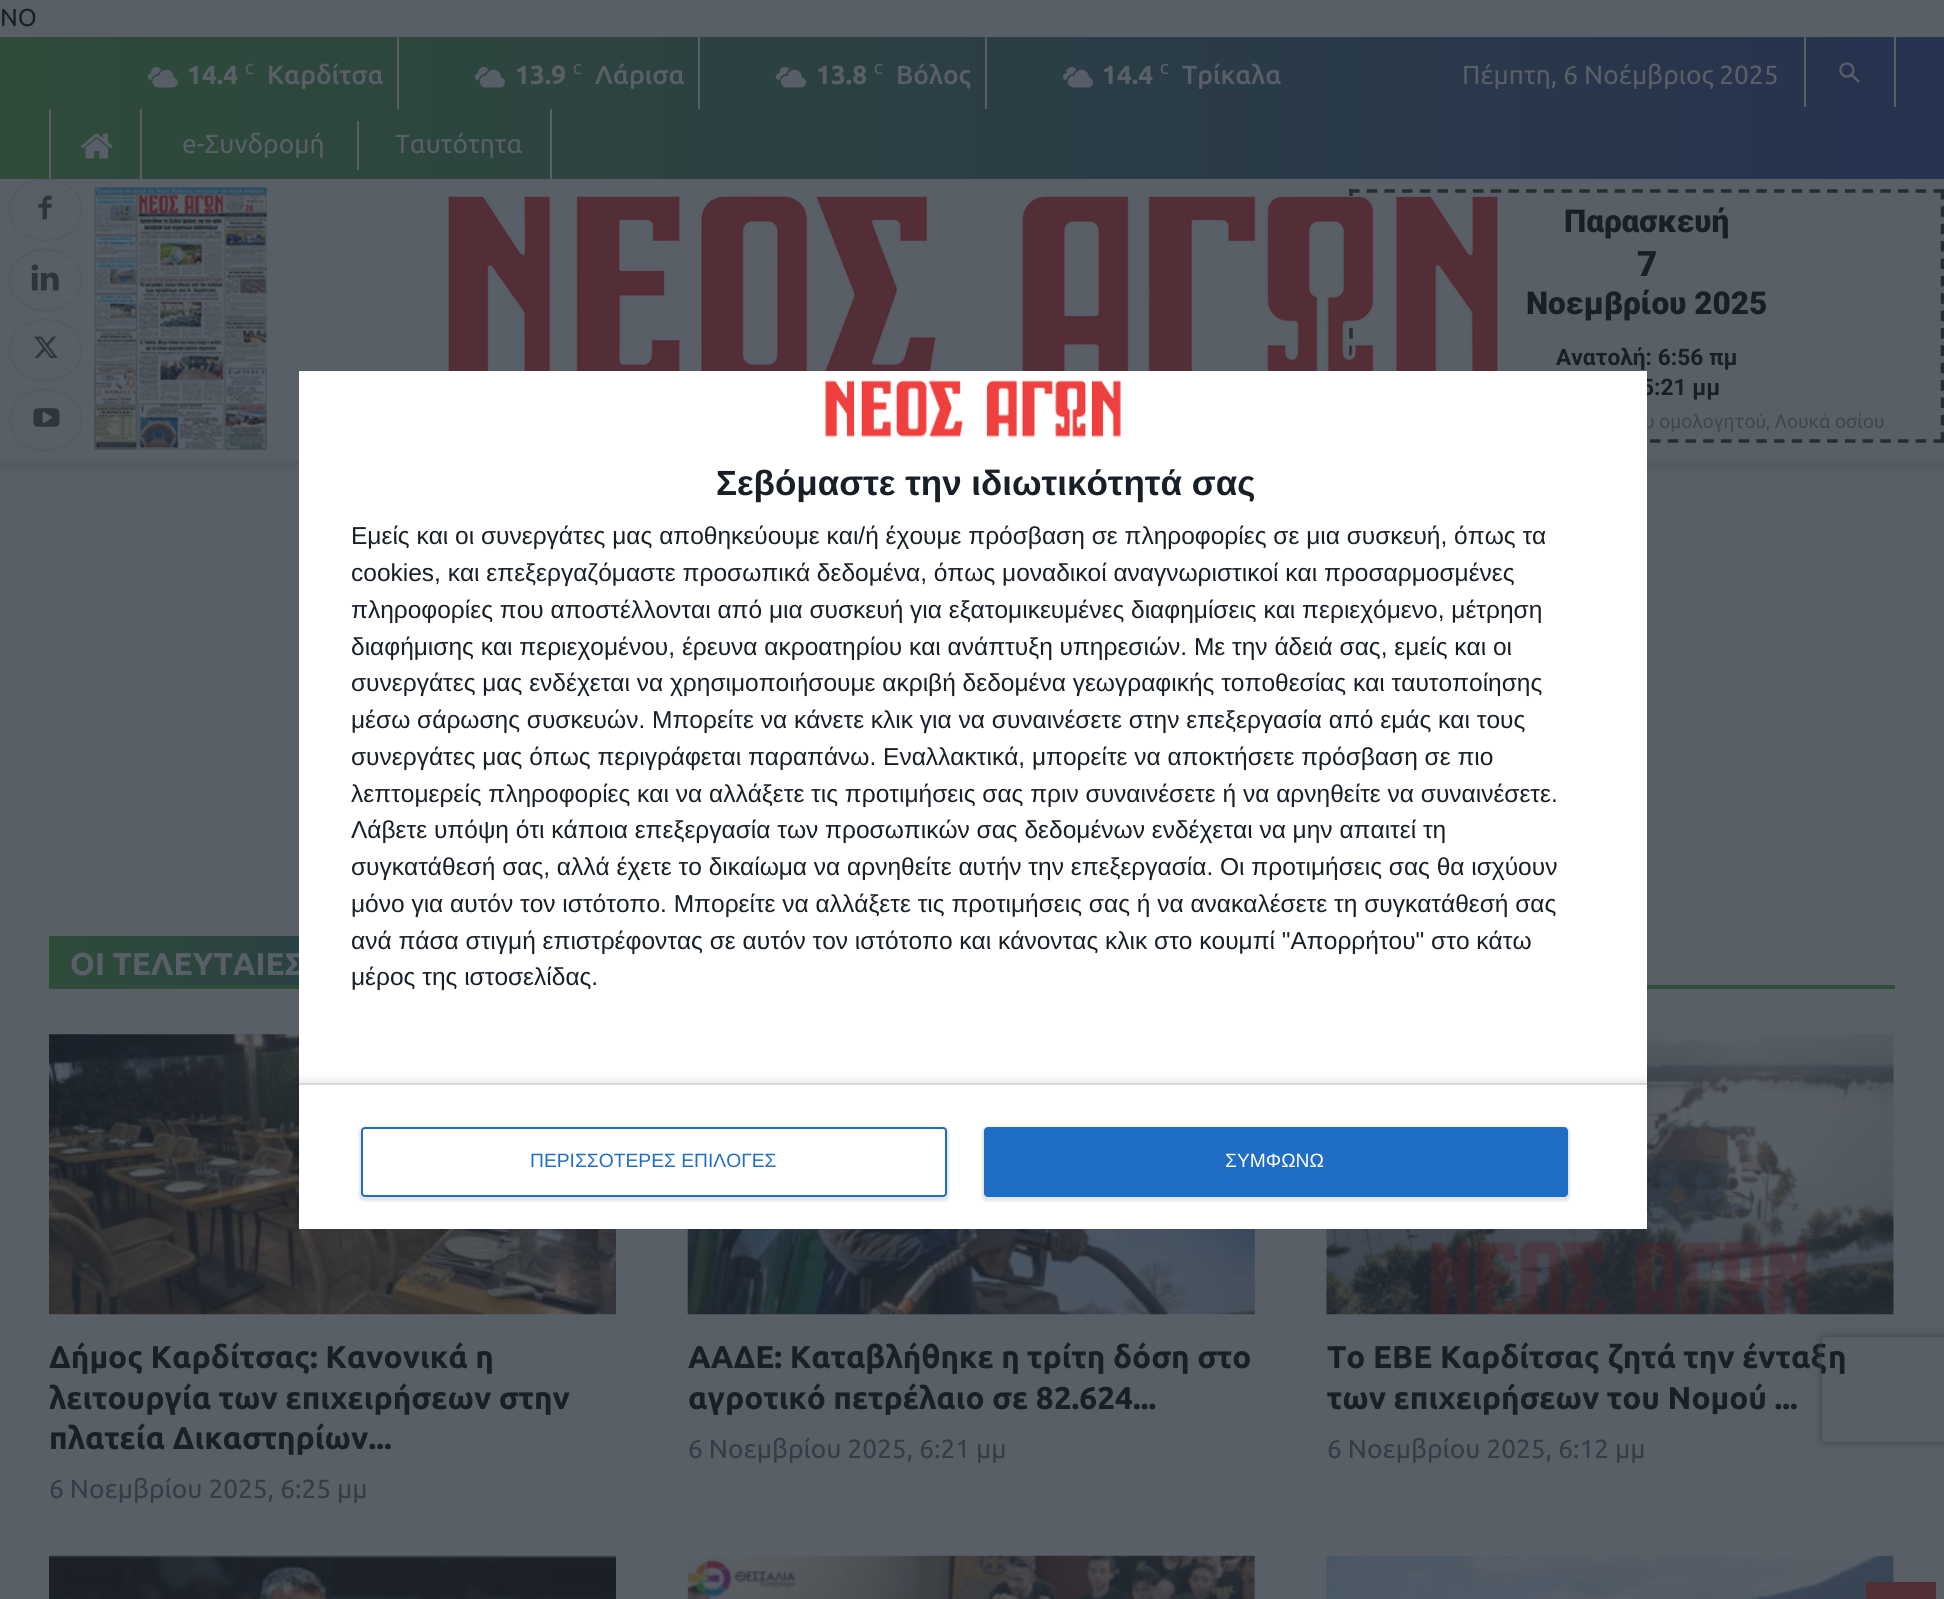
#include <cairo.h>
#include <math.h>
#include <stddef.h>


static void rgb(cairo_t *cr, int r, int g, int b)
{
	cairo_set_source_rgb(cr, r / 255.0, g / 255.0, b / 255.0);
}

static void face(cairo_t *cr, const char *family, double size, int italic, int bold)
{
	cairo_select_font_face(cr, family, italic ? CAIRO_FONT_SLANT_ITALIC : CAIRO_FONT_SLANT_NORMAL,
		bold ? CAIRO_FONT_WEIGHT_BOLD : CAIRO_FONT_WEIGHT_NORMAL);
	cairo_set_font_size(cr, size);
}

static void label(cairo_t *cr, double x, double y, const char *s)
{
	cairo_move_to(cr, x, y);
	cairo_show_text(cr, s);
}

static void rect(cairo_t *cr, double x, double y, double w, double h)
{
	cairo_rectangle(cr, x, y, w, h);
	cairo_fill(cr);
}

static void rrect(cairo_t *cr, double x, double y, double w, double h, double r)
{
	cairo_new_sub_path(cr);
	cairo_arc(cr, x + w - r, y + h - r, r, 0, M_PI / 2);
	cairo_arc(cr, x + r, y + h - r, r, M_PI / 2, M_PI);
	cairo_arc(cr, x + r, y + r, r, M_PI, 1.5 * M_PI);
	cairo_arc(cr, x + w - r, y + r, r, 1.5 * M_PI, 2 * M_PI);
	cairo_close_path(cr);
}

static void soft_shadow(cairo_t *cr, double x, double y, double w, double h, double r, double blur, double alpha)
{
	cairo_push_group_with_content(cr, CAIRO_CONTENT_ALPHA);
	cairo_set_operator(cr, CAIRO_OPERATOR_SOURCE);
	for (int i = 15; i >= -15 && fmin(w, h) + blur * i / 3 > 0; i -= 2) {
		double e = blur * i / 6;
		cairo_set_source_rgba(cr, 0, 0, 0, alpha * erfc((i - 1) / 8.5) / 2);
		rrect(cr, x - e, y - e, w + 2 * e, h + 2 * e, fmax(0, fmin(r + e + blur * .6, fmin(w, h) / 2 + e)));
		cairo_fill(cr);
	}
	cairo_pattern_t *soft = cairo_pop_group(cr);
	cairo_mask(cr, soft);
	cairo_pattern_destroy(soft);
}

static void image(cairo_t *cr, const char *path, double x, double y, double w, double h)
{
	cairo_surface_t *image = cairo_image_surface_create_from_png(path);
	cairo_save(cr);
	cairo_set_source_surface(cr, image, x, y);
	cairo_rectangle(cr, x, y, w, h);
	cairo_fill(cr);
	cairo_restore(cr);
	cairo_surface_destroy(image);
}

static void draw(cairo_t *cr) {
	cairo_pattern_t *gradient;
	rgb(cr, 89, 95, 103);
	cairo_paint(cr);
	face(cr, "Ubuntu", 24.5, 0, 0);
	rgb(cr, 25, 31, 39);
	label(cr, 0, 26, "NO");
	cairo_new_path(cr);
	cairo_move_to(cr, 45.5, 179.5);
	cairo_curve_to(cr, 65.5, 179.5, 81.5, 193, 81.5, 210);
	cairo_curve_to(cr, 81.5, 227, 65.5, 240.5, 45.5, 240.5);
	cairo_curve_to(cr, 25.5, 240.5, 9.5, 227, 9.5, 210);
	cairo_curve_to(cr, 9.5, 193, 25.5, 179.5, 45.5, 179.5);
	cairo_close_path(cr);
	rgb(cr, 84, 90, 99);
	cairo_set_line_width(cr, 1.8);
	cairo_stroke(cr);
	gradient = cairo_pattern_create_linear(0, 108, 1944, 108);
	cairo_pattern_add_color_stop_rgba(gradient, 0, 0.184, 0.294, 0.227, 1);
	cairo_pattern_add_color_stop_rgba(gradient, 1, 0.153, 0.196, 0.31, 1);
	cairo_set_source(cr, gradient);
	cairo_pattern_destroy(gradient);
	rect(cr, 0, 37, 1944, 142);
	rgb(cr, 89, 95, 103);
	rect(cr, 397, 37, 2, 72);
	image(cr, "image0.png", 147, 67, 31, 21);
	face(cr, "Ubuntu", 26.25, 0, 1);
	label(cr, 187, 84, "14.4");
	face(cr, "Open Sans SemiBold", 14, 0, 0);
	label(cr, 245, 74, "C");
	face(cr, "Ubuntu Medium", 26.25, 0, 0);
	label(cr, 267, 84, "Καρδίτσα");
	rect(cr, 698, 37, 2, 72);
	image(cr, "image1.png", 474, 67, 31, 21);
	face(cr, "Ubuntu", 26.25, 0, 1);
	label(cr, 515, 84, "13.9");
	face(cr, "Open Sans SemiBold", 14, 0, 0);
	label(cr, 573, 74, "C");
	face(cr, "Ubuntu Medium", 26.25, 0, 0);
	label(cr, 595, 84, "Λάρισα");
	rect(cr, 985, 37, 2, 72);
	image(cr, "image2.png", 775, 67, 31, 21);
	face(cr, "Ubuntu", 26.25, 0, 1);
	label(cr, 816, 84, "13.8");
	face(cr, "Open Sans SemiBold", 14, 0, 0);
	label(cr, 874, 74, "C");
	face(cr, "Ubuntu Medium", 26.25, 0, 0);
	label(cr, 896, 84, "Βόλος");
	image(cr, "image3.png", 1062, 67, 31, 21);
	face(cr, "Ubuntu", 26.25, 0, 1);
	label(cr, 1102, 84, "14.4");
	face(cr, "Open Sans SemiBold", 14, 0, 0);
	label(cr, 1160, 74, "C");
	face(cr, "Ubuntu Medium", 26.25, 0, 0);
	label(cr, 1182, 84, "Τρίκαλα");
	face(cr, "Ubuntu", 26.25, 0, 0);
	label(cr, 1462, 84, "Πέμπτη, 6 Νοέμβριος 2025");
	rect(cr, 550, 109, 2, 70);
	rect(cr, 49, 109, 2, 70);
	rect(cr, 140, 109, 2, 70);
	image(cr, "image4.png", 81, 133, 32, 26);
	label(cr, 182, 153, "e-Συνδρομή");
	rect(cr, 357, 121, 2, 49);
	label(cr, 395, 153, "Ταυτότητα");
	rect(cr, 1894, 37, 2, 70);
	rect(cr, 1804, 37, 2, 70);
	image(cr, "image5.png", 1839, 62, 21, 21);
	image(cr, "image6.png", 38, 195, 14, 25);
	cairo_new_path(cr);
	cairo_move_to(cr, 45.5, 249.5);
	cairo_curve_to(cr, 65.5, 249.5, 81.5, 263, 81.5, 280);
	cairo_curve_to(cr, 81.5, 297, 65.5, 310.5, 45.5, 310.5);
	cairo_curve_to(cr, 25.5, 310.5, 9.5, 297, 9.5, 280);
	cairo_curve_to(cr, 9.5, 263, 25.5, 249.5, 45.5, 249.5);
	cairo_close_path(cr);
	rgb(cr, 84, 90, 99);
	cairo_stroke(cr);
	image(cr, "image7.png", 31, 264, 28, 27);
	cairo_new_path(cr);
	cairo_move_to(cr, 45.5, 319.5);
	cairo_curve_to(cr, 65.5, 319.5, 81.5, 333, 81.5, 350);
	cairo_curve_to(cr, 81.5, 367, 65.5, 380.5, 45.5, 380.5);
	cairo_curve_to(cr, 25.5, 380.5, 9.5, 367, 9.5, 350);
	cairo_curve_to(cr, 9.5, 333, 25.5, 319.5, 45.5, 319.5);
	cairo_close_path(cr);
	cairo_stroke(cr);
	image(cr, "image8.png", 34, 336, 24, 22);
	cairo_new_path(cr);
	cairo_move_to(cr, 45.5, 389.5);
	cairo_curve_to(cr, 65.5, 389.5, 81.5, 403, 81.5, 420);
	cairo_curve_to(cr, 81.5, 437, 65.5, 450.5, 45.5, 450.5);
	cairo_curve_to(cr, 25.5, 450.5, 9.5, 437, 9.5, 420);
	cairo_curve_to(cr, 9.5, 403, 25.5, 389.5, 45.5, 389.5);
	cairo_close_path(cr);
	cairo_stroke(cr);
	image(cr, "image9.png", 33, 408, 27, 19);
	image(cr, "image10.png", 94, 187, 173, 263);
	cairo_new_path(cr);
	cairo_move_to(cr, 1349, 191);
	cairo_line_to(cr, 1944, 191);
	rgb(cr, 38, 44, 52);
	cairo_set_line_width(cr, 3.5);
	cairo_set_dash(cr, (double[]){10.5, 7.21}, 2, 0);
	cairo_stroke(cr);
	cairo_new_path(cr);
	cairo_move_to(cr, 1942.5, 189);
	cairo_line_to(cr, 1942.5, 443);
	cairo_set_dash(cr, (double[]){10.5, 6.88}, 2, 0);
	cairo_stroke(cr);
	cairo_new_path(cr);
	cairo_move_to(cr, 1349, 441);
	cairo_line_to(cr, 1944, 441);
	cairo_set_dash(cr, (double[]){10.5, 7.21}, 2, 0);
	cairo_stroke(cr);
	cairo_new_path(cr);
	cairo_move_to(cr, 1351, 189);
	cairo_line_to(cr, 1351, 443);
	cairo_set_dash(cr, (double[]){10.5, 6.88}, 2, 0);
	cairo_stroke(cr);
	image(cr, "image11.png", 448, 196, 1050, 175);
	face(cr, "Roboto Black", 31.5, 0, 0);
	rgb(cr, 25, 31, 39);
	label(cr, 1564, 232, "Παρασκευή");
	face(cr, "Roboto Black", 35, 0, 0);
	label(cr, 1637, 276, "7");
	face(cr, "Roboto Black", 31.5, 0, 0);
	label(cr, 1526, 314, "Νοεμβρίου 2025");
	face(cr, "Roboto", 22.75, 0, 1);
	label(cr, 1556, 365, "Ανατολή: 6:56 πμ");
	label(cr, 1641, 395, "5:21 μμ");
	face(cr, "Roboto", 19.25, 0, 0);
	rgb(cr, 63, 69, 77);
	label(cr, 1644, 428, "υ ομολογητού, Λουκά οσίου");
	image(cr, "image12.png", 0, 460, 1944, 15);
	rgb(cr, 47, 75, 58);
	rect(cr, 49, 985, 1846, 4);
	gradient = cairo_pattern_create_linear(49, 961, 642, 961);
	cairo_pattern_add_color_stop_rgba(gradient, 0, 0.184, 0.294, 0.227, 1);
	cairo_pattern_add_color_stop_rgba(gradient, 1, 0.153, 0.196, 0.31, 1);
	cairo_set_source(cr, gradient);
	cairo_pattern_destroy(gradient);
	rect(cr, 49, 936, 250, 49);
	face(cr, "Ubuntu", 31.5, 0, 1);
	rgb(cr, 89, 95, 103);
	label(cr, 70, 975, "ΟΙ ΤΕΛΕΥΤΑΙΕΣ");
	image(cr, "image13.png", 49, 1034, 567, 281);
	rgb(cr, 25, 31, 39);
	label(cr, 49, 1368, "Δήμος Καρδίτσας: Κανονικά η");
	label(cr, 49, 1409, "λειτουργία των επιχειρήσεων στην");
	label(cr, 49, 1449, "πλατεία Δικαστηρίων...");
	face(cr, "Ubuntu", 26.25, 0, 0);
	rgb(cr, 54, 60, 69);
	label(cr, 49, 1498, "6 Νοεμβρίου 2025, 6:25 μμ");
	image(cr, "image14.png", 687, 1229, 568, 86);
	face(cr, "Ubuntu", 31.5, 0, 1);
	rgb(cr, 25, 31, 39);
	label(cr, 688, 1368, "ΑΑΔΕ: Καταβλήθηκε η τρίτη δόση στο");
	label(cr, 688, 1409, "αγροτικό πετρέλαιο σε 82.624...");
	face(cr, "Ubuntu", 26.25, 0, 0);
	rgb(cr, 54, 60, 69);
	label(cr, 688, 1458, "6 Νοεμβρίου 2025, 6:21 μμ");
	image(cr, "image15.png", 1326, 1034, 568, 281);
	face(cr, "Ubuntu", 31.5, 0, 1);
	rgb(cr, 25, 31, 39);
	label(cr, 1327, 1368, "Το EBE Καρδίτσας ζητά την ένταξη");
	label(cr, 1327, 1409, "των επιχειρήσεων του Νομού ...");
	face(cr, "Ubuntu", 26.25, 0, 0);
	rgb(cr, 54, 60, 69);
	label(cr, 1327, 1458, "6 Νοεμβρίου 2025, 6:12 μμ");
	image(cr, "image16.png", 49, 1555, 567, 44);
	image(cr, "image17.png", 687, 1555, 568, 44);
	image(cr, "image18.png", 1326, 1555, 568, 44);
	rgb(cr, 255, 255, 255);
	rect(cr, 299, 371, 1348, 858);
	image(cr, "image19.png", 825, 380, 296, 58);
	face(cr, "Liberation Sans", 35, 0, 1);
	rgb(cr, 25, 31, 39);
	label(cr, 716, 495, "Σεβόμαστε την ιδιωτικότητά σας");
	face(cr, "Liberation Sans", 24.5, 0, 0);
	label(cr, 351, 544, "Εμείς και οι συνεργάτες μας αποθηκεύουμε και/ή έχουμε πρόσβαση σε πληροφορίες σε μια συσκευή, όπως τα");
	label(cr, 351, 581, "cookies, και επεξεργαζόμαστε προσωπικά δεδομένα, όπως μοναδικοί αναγνωριστικοί και προσαρμοσμένες");
	label(cr, 351, 618, "πληροφορίες που αποστέλλονται από μια συσκευή για εξατομικευμένες διαφημίσεις και περιεχόμενο, μέτρηση");
	label(cr, 351, 655, "διαφήμισης και περιεχομένου, έρευνα ακροατηρίου και ανάπτυξη υπηρεσιών. Με την άδειά σας, εμείς και οι");
	label(cr, 351, 691, "συνεργάτες μας ενδέχεται να χρησιμοποιήσουμε ακριβή δεδομένα γεωγραφικής τοποθεσίας και ταυτοποίησης");
	label(cr, 351, 728, "μέσω σάρωσης συσκευών. Μπορείτε να κάνετε κλικ για να συναινέσετε στην επεξεργασία από εμάς και τους");
	label(cr, 351, 765, "συνεργάτες μας όπως περιγράφεται παραπάνω. Εναλλακτικά, μπορείτε να αποκτήσετε πρόσβαση σε πιο");
	label(cr, 351, 802, "λεπτομερείς πληροφορίες και να αλλάξετε τις προτιμήσεις σας πριν συναινέσετε ή να αρνηθείτε να συναινέσετε.");
	label(cr, 351, 838, "Λάβετε υπόψη ότι κάποια επεξεργασία των προσωπικών σας δεδομένων ενδέχεται να μην απαιτεί τη");
	label(cr, 351, 875, "συγκατάθεσή σας, αλλά έχετε το δικαίωμα να αρνηθείτε αυτήν την επεξεργασία. Οι προτιμήσεις σας θα ισχύουν");
	label(cr, 351, 912, "μόνο για αυτόν τον ιστότοπο. Μπορείτε να αλλάξετε τις προτιμήσεις σας ή να ανακαλέσετε τη συγκατάθεσή σας");
	label(cr, 351, 949, "ανά πάσα στιγμή επιστρέφοντας σε αυτόν τον ιστότοπο και κάνοντας κλικ στο κουμπί \"Απορρήτου\" στο κάτω");
	label(cr, 351, 985, "μέρος της ιστοσελίδας.");
	cairo_save(cr);
	cairo_set_fill_rule(cr, CAIRO_FILL_RULE_EVEN_ODD);
	cairo_new_path(cr);
	cairo_move_to(cr, 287, 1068);
	cairo_line_to(cr, 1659, 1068);
	cairo_line_to(cr, 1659, 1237);
	cairo_line_to(cr, 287, 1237);
	cairo_close_path(cr);
	cairo_move_to(cr, 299, 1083);
	cairo_line_to(cr, 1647, 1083);
	cairo_line_to(cr, 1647, 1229);
	cairo_line_to(cr, 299, 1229);
	cairo_close_path(cr);
	cairo_clip(cr);
	rgb(cr, 0, 0, 0);
	soft_shadow(cr, 299, 1080, 1348, 145, 0, 3.5, 0.1);
	cairo_restore(cr);
	rgb(cr, 216, 216, 216);
	rect(cr, 299, 1083, 1348, 2);
	rgb(cr, 0, 0, 0);
	soft_shadow(cr, 359, 1127, 590, 74, 5, 1, 0.1);
	rgb(cr, 255, 255, 255);
	rrect(cr, 362, 1128, 584, 68, 3);
	cairo_fill_preserve(cr);
	rgb(cr, 32, 109, 197);
	cairo_set_line_width(cr, 2);
	cairo_set_dash(cr, NULL, 0, 0);
	cairo_stroke(cr);
	face(cr, "Liberation Sans", 19.25, 0, 0);
	label(cr, 530, 1167, "ΠΕΡΙΣΣΟΤΕΡΕΣ ΕΠΙΛΟΓΕΣ");
	rgb(cr, 0, 0, 0);
	soft_shadow(cr, 982, 1127, 588, 74, 5, 1, 0.1);
	rgb(cr, 32, 109, 197);
	rrect(cr, 984, 1127, 584, 70, 4);
	cairo_fill(cr);
	rgb(cr, 255, 255, 255);
	label(cr, 1225, 1167, "ΣΥΜΦΩΝΩ");
	cairo_save(cr);
	cairo_set_fill_rule(cr, CAIRO_FILL_RULE_EVEN_ODD);
	cairo_new_path(cr);
	cairo_move_to(cr, 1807, 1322);
	cairo_line_to(cr, 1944, 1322);
	cairo_line_to(cr, 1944, 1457);
	cairo_line_to(cr, 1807, 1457);
	cairo_close_path(cr);
	cairo_move_to(cr, 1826, 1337);
	cairo_line_to(cr, 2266, 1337);
	cairo_curve_to(cr, 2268, 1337, 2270, 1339, 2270, 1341);
	cairo_line_to(cr, 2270, 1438);
	cairo_curve_to(cr, 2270, 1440, 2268, 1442, 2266, 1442);
	cairo_line_to(cr, 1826, 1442);
	cairo_curve_to(cr, 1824, 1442, 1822, 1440, 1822, 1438);
	cairo_line_to(cr, 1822, 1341);
	cairo_curve_to(cr, 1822, 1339, 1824, 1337, 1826, 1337);
	cairo_close_path(cr);
	cairo_clip(cr);
	rgb(cr, 57, 63, 71);
	soft_shadow(cr, 1822, 1337, 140, 105, 4, 4.5, 1);
	cairo_restore(cr);
	rgb(cr, 82, 46, 53);
	rect(cr, 1866, 1582, 70, 17);
}

int main(void) {
	cairo_surface_t *surface = cairo_image_surface_create(CAIRO_FORMAT_RGB24, 1944, 1599);
	cairo_t *cr = cairo_create(surface);
	cairo_font_options_t *options = cairo_font_options_create();
	cairo_font_options_set_hint_metrics(options, CAIRO_HINT_METRICS_OFF);
	cairo_font_options_set_hint_style(options, CAIRO_HINT_STYLE_NONE);
	cairo_set_font_options(cr, options);
	cairo_set_miter_limit(cr, 4);
	draw(cr);
	cairo_surface_write_to_png(surface, "render.png");
	cairo_font_options_destroy(options);
	cairo_destroy(cr);
	cairo_surface_destroy(surface);
	return 0;
}
